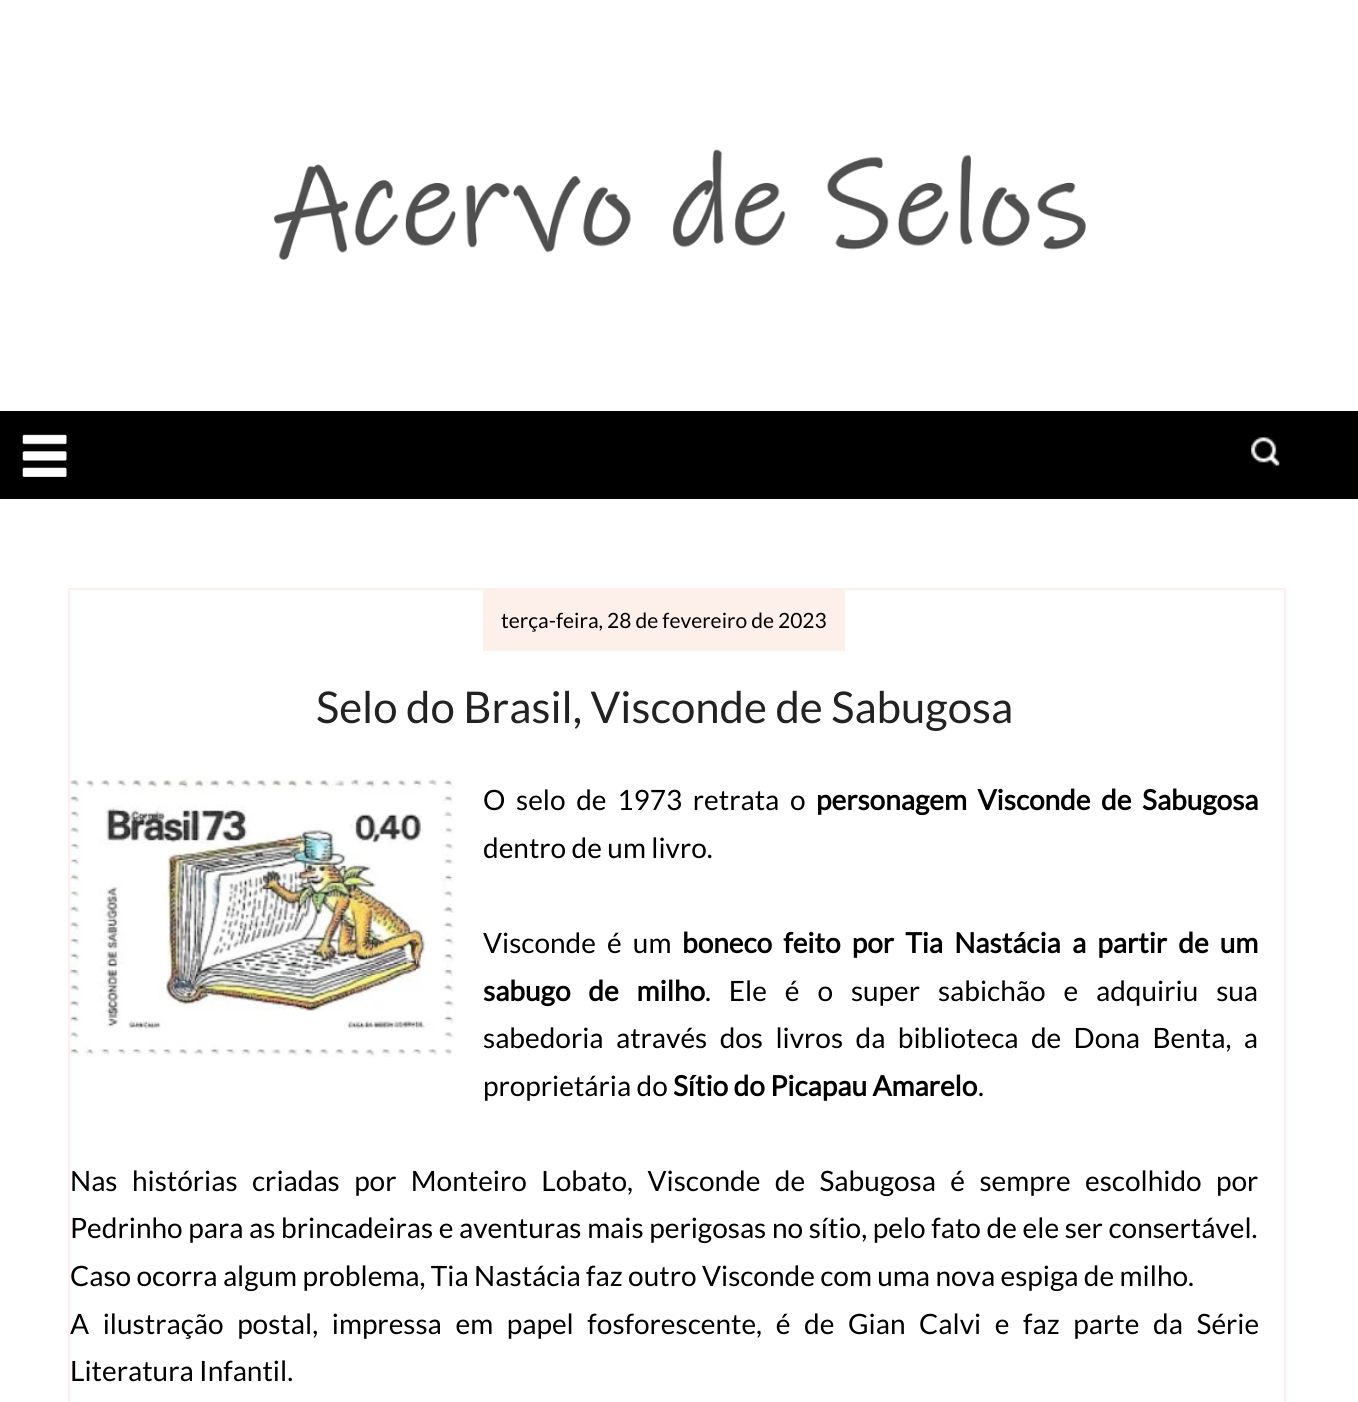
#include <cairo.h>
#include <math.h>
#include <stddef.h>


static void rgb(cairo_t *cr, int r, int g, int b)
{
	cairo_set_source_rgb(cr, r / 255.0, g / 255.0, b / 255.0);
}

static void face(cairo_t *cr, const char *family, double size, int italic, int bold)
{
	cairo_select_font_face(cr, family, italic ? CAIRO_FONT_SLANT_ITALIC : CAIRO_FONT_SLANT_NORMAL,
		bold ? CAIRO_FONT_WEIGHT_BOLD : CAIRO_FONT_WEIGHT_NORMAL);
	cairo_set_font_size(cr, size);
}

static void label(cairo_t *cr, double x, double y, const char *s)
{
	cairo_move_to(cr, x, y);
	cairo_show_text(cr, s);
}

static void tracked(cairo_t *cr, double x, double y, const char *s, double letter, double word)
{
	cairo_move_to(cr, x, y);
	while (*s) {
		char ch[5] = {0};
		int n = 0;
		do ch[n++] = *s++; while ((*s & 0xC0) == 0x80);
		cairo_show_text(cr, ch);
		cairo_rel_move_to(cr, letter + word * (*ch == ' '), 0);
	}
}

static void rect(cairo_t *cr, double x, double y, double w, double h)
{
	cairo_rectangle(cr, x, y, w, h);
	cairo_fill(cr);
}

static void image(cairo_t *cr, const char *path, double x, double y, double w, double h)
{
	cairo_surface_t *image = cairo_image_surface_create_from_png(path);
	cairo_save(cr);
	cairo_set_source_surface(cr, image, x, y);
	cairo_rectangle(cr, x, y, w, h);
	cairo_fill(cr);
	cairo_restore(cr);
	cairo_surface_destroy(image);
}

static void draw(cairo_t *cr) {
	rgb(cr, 255, 255, 255);
	cairo_paint(cr);
	image(cr, "image0.png", 274, 149, 812, 111);
	rgb(cr, 0, 0, 0);
	rect(cr, 0, 411, 1358, 88);
	image(cr, "image1.png", 22, 434, 45, 43);
	image(cr, "image2.png", 1251, 437, 29, 29);
	cairo_rectangle(cr, 69, 589, 1216, 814);
	rgb(cr, 253, 239, 234);
	cairo_stroke(cr);
	rect(cr, 483, 590, 362, 61);
	face(cr, "Lato", 21, 0, 0);
	rgb(cr, 0, 0, 0);
	label(cr, 501, 628, "terça-feira, 28 de fevereiro de 2023");
	face(cr, "Lato", 43.75, 0, 0);
	rgb(cr, 34, 34, 34);
	label(cr, 316, 723, "Selo do Brasil, Visconde de Sabugosa");
	image(cr, "image3.png", 70, 776, 385, 281);
	face(cr, "Lato", 28, 0, 0);
	rgb(cr, 0, 0, 0);
	tracked(cr, 483, 810, "O selo de 1973 retrata o", 0, 5.25);
	face(cr, "Lato", 28, 0, 1);
	tracked(cr, 816, 810, "personagem Visconde de Sabugosa", 0, 5.25);
	face(cr, "Lato", 28, 0, 0);
	label(cr, 483, 858, "dentro de um livro.");
	tracked(cr, 483, 953, "Visconde é um", 0, 5.75);
	face(cr, "Lato", 28, 0, 1);
	tracked(cr, 682, 953, "boneco feito por Tia Nastácia a partir de um", 0, 5.75);
	tracked(cr, 483, 1001, "sabugo de milho", 0, 12.5);
	face(cr, "Lato", 28, 0, 0);
	tracked(cr, 705, 1001, ". Ele é o super sabichão e adquiriu sua", 0, 12.5);
	tracked(cr, 483, 1048, "sabedoria através dos livros da biblioteca de Dona Benta, a", 0, 7);
	label(cr, 483, 1096, "proprietária do");
	face(cr, "Lato", 28, 0, 1);
	label(cr, 673, 1096, "Sítio do Picapau Amarelo");
	face(cr, "Lato", 28, 0, 0);
	label(cr, 978, 1096, ".");
	tracked(cr, 70, 1191, "Nas histórias criadas por Monteiro Lobato, Visconde de Sabugosa é sempre escolhido por", 0, 9);
	tracked(cr, 70, 1238, "Pedrinho para as brincadeiras e aventuras mais perigosas no sítio, pelo fato de ele ser consertável.", 0, 0.25);
	label(cr, 70, 1286, "Caso ocorra algum problema, Tia Nastácia faz outro Visconde com uma nova espiga de milho.");
	tracked(cr, 70, 1334, "A ilustração postal, impressa em papel fosforescente, é de Gian Calvi e faz parte da Série", 0, 8.25);
	label(cr, 70, 1381, "Literatura Infantil.");
}

int main(void) {
	cairo_surface_t *surface = cairo_image_surface_create(CAIRO_FORMAT_RGB24, 1358, 1402);
	cairo_t *cr = cairo_create(surface);
	cairo_font_options_t *options = cairo_font_options_create();
	cairo_font_options_set_hint_metrics(options, CAIRO_HINT_METRICS_OFF);
	cairo_font_options_set_hint_style(options, CAIRO_HINT_STYLE_NONE);
	cairo_set_font_options(cr, options);
	cairo_set_miter_limit(cr, 4);
	draw(cr);
	cairo_surface_write_to_png(surface, "render.png");
	cairo_font_options_destroy(options);
	cairo_destroy(cr);
	cairo_surface_destroy(surface);
	return 0;
}
